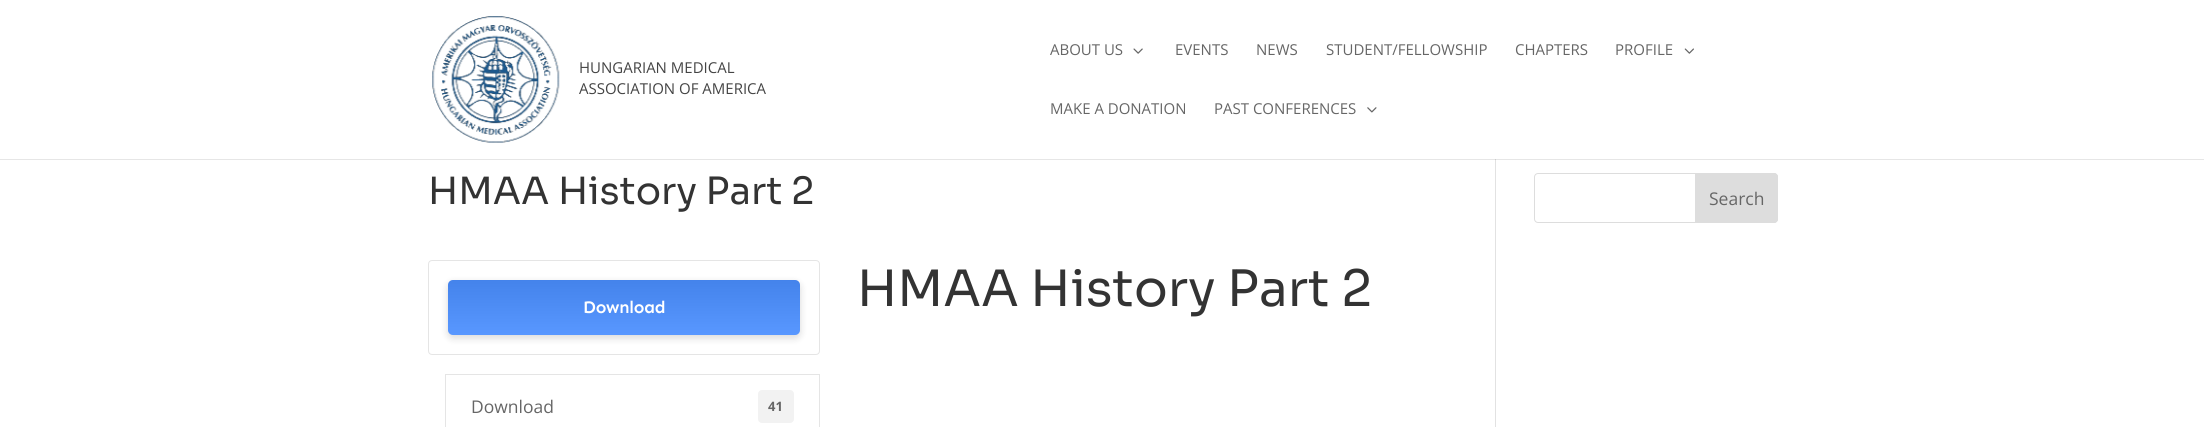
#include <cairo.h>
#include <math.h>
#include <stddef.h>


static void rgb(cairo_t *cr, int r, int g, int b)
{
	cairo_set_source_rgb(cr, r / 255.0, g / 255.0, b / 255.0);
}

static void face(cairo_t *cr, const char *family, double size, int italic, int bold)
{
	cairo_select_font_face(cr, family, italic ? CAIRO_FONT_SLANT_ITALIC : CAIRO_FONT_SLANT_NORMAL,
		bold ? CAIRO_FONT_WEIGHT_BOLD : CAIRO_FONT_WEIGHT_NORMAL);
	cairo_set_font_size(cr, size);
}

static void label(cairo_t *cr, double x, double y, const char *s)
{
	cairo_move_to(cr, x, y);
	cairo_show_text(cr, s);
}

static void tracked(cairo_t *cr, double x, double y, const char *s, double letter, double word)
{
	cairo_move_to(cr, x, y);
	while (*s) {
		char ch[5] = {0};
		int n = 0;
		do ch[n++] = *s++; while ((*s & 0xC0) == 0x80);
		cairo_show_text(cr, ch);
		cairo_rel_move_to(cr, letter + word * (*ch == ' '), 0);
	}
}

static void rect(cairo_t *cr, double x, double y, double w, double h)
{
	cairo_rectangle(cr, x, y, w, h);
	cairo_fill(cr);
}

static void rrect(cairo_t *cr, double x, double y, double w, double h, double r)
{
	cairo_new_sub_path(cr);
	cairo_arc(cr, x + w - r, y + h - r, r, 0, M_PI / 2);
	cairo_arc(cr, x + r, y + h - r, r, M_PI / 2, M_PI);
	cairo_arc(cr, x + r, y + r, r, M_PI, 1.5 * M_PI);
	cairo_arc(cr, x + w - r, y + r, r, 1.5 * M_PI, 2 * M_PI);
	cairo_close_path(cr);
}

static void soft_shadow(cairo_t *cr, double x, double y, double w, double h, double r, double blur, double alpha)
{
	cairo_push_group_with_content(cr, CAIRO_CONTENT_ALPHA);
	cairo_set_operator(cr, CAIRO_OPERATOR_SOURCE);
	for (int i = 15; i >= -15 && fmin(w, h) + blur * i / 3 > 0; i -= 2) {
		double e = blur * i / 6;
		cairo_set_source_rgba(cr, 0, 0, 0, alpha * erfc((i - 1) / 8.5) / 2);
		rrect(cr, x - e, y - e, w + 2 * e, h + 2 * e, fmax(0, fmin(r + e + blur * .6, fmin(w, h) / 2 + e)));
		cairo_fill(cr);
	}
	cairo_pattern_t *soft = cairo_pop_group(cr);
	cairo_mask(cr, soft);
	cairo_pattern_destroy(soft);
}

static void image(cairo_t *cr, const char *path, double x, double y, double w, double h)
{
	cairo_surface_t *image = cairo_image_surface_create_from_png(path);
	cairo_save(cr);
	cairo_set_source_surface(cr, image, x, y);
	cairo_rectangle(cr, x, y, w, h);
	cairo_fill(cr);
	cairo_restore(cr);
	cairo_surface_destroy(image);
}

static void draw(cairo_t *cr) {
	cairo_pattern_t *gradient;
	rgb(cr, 255, 255, 255);
	cairo_paint(cr);
	rgb(cr, 230, 230, 230);
	rect(cr, 0, 159, 2204, 1);
	image(cr, "image0.png", 432, 16, 128, 127);
	face(cr, "Open Sans", 15, 0, 0);
	rgb(cr, 68, 68, 68);
	label(cr, 579, 73, "HUNGARIAN MEDICAL");
	label(cr, 579, 94, "ASSOCIATION OF AMERICA");
	rgb(cr, 102, 102, 102);
	label(cr, 1050, 55, "ABOUT US");
	image(cr, "image1.png", 1133, 48, 10, 6);
	label(cr, 1175, 55, "EVENTS");
	label(cr, 1256, 55, "NEWS");
	label(cr, 1326, 55, "STUDENT/FELLOWSHIP");
	label(cr, 1515, 55, "CHAPTERS");
	label(cr, 1615, 55, "PROFILE");
	image(cr, "image2.png", 1684, 48, 10, 6);
	label(cr, 1050, 114, "MAKE A DONATION");
	label(cr, 1214, 114, "PAST CONFERENCES");
	image(cr, "image3.png", 1367, 107, 10, 6);
	rgb(cr, 226, 226, 226);
	rect(cr, 1495, 160, 1, 267);
	rgb(cr, 203, 203, 203);
	rect(cr, 1495, 159, 1, 1);
	face(cr, "Sora", 37.5, 0, 0);
	rgb(cr, 51, 51, 51);
	label(cr, 428, 204, "HMAA History Part 2");
	face(cr, "Sora", 50, 0, 0);
	label(cr, 857, 306, "HMAA History Part 2");
	rrect(cr, 428.5, 260.5, 391, 94, 3.5);
	rgb(cr, 229, 229, 229);
	cairo_set_line_width(cr, 1);
	cairo_stroke(cr);
	rgb(cr, 0, 0, 0);
	soft_shadow(cr, 448, 283, 352, 55, 5, 4, 0.15);
	rgb(cr, 74, 142, 255);
	rrect(cr, 448, 280, 352, 55, 5);
	cairo_fill(cr);
	gradient = cairo_pattern_create_linear(624, 280, 624, 335);
	cairo_pattern_add_color_stop_rgba(gradient, 0, 0, 0, 0, 0.08);
	cairo_pattern_add_color_stop_rgba(gradient, 1, 1, 1, 1, 0.08);
	cairo_set_source(cr, gradient);
	cairo_pattern_destroy(gradient);
	rrect(cr, 448, 280, 352, 55, 5);
	cairo_fill(cr);
	face(cr, "Sen SemiBold", 17.5, 0, 0);
	rgb(cr, 255, 255, 255);
	tracked(cr, 583, 313, "Download", -0.25, 0);
	cairo_rectangle(cr, 445.5, 374.5, 374, 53);
	rgb(cr, 229, 229, 229);
	cairo_stroke(cr);
	face(cr, "Open Sans", 17.5, 0, 0);
	rgb(cr, 102, 102, 102);
	label(cr, 471, 413, "Download");
	rgb(cr, 242, 242, 242);
	rrect(cr, 758, 390, 36, 33, 4);
	cairo_fill(cr);
	face(cr, "Open Sans", 13, 0, 1);
	rgb(cr, 102, 102, 102);
	label(cr, 768, 411, "41");
	rrect(cr, 1534.5, 173.5, 243, 49, 3.5);
	rgb(cr, 221, 221, 221);
	cairo_stroke(cr);
	cairo_new_path(cr);
	cairo_move_to(cr, 1695.5, 173.5);
	cairo_line_to(cr, 1774, 173.5);
	cairo_curve_to(cr, 1776, 173.5, 1777.5, 175, 1777.5, 177);
	cairo_line_to(cr, 1777.5, 219);
	cairo_curve_to(cr, 1777.5, 221, 1776, 222.5, 1774, 222.5);
	cairo_line_to(cr, 1695.5, 222.5);
	cairo_close_path(cr);
	cairo_fill_preserve(cr);
	cairo_stroke(cr);
	face(cr, "Open Sans", 17.5, 0, 0);
	rgb(cr, 102, 102, 102);
	label(cr, 1709, 205, "Search");
}

int main(void) {
	cairo_surface_t *surface = cairo_image_surface_create(CAIRO_FORMAT_RGB24, 2204, 427);
	cairo_t *cr = cairo_create(surface);
	cairo_font_options_t *options = cairo_font_options_create();
	cairo_font_options_set_hint_metrics(options, CAIRO_HINT_METRICS_OFF);
	cairo_font_options_set_hint_style(options, CAIRO_HINT_STYLE_NONE);
	cairo_set_font_options(cr, options);
	cairo_set_miter_limit(cr, 4);
	draw(cr);
	cairo_surface_write_to_png(surface, "render.png");
	cairo_font_options_destroy(options);
	cairo_destroy(cr);
	cairo_surface_destroy(surface);
	return 0;
}
